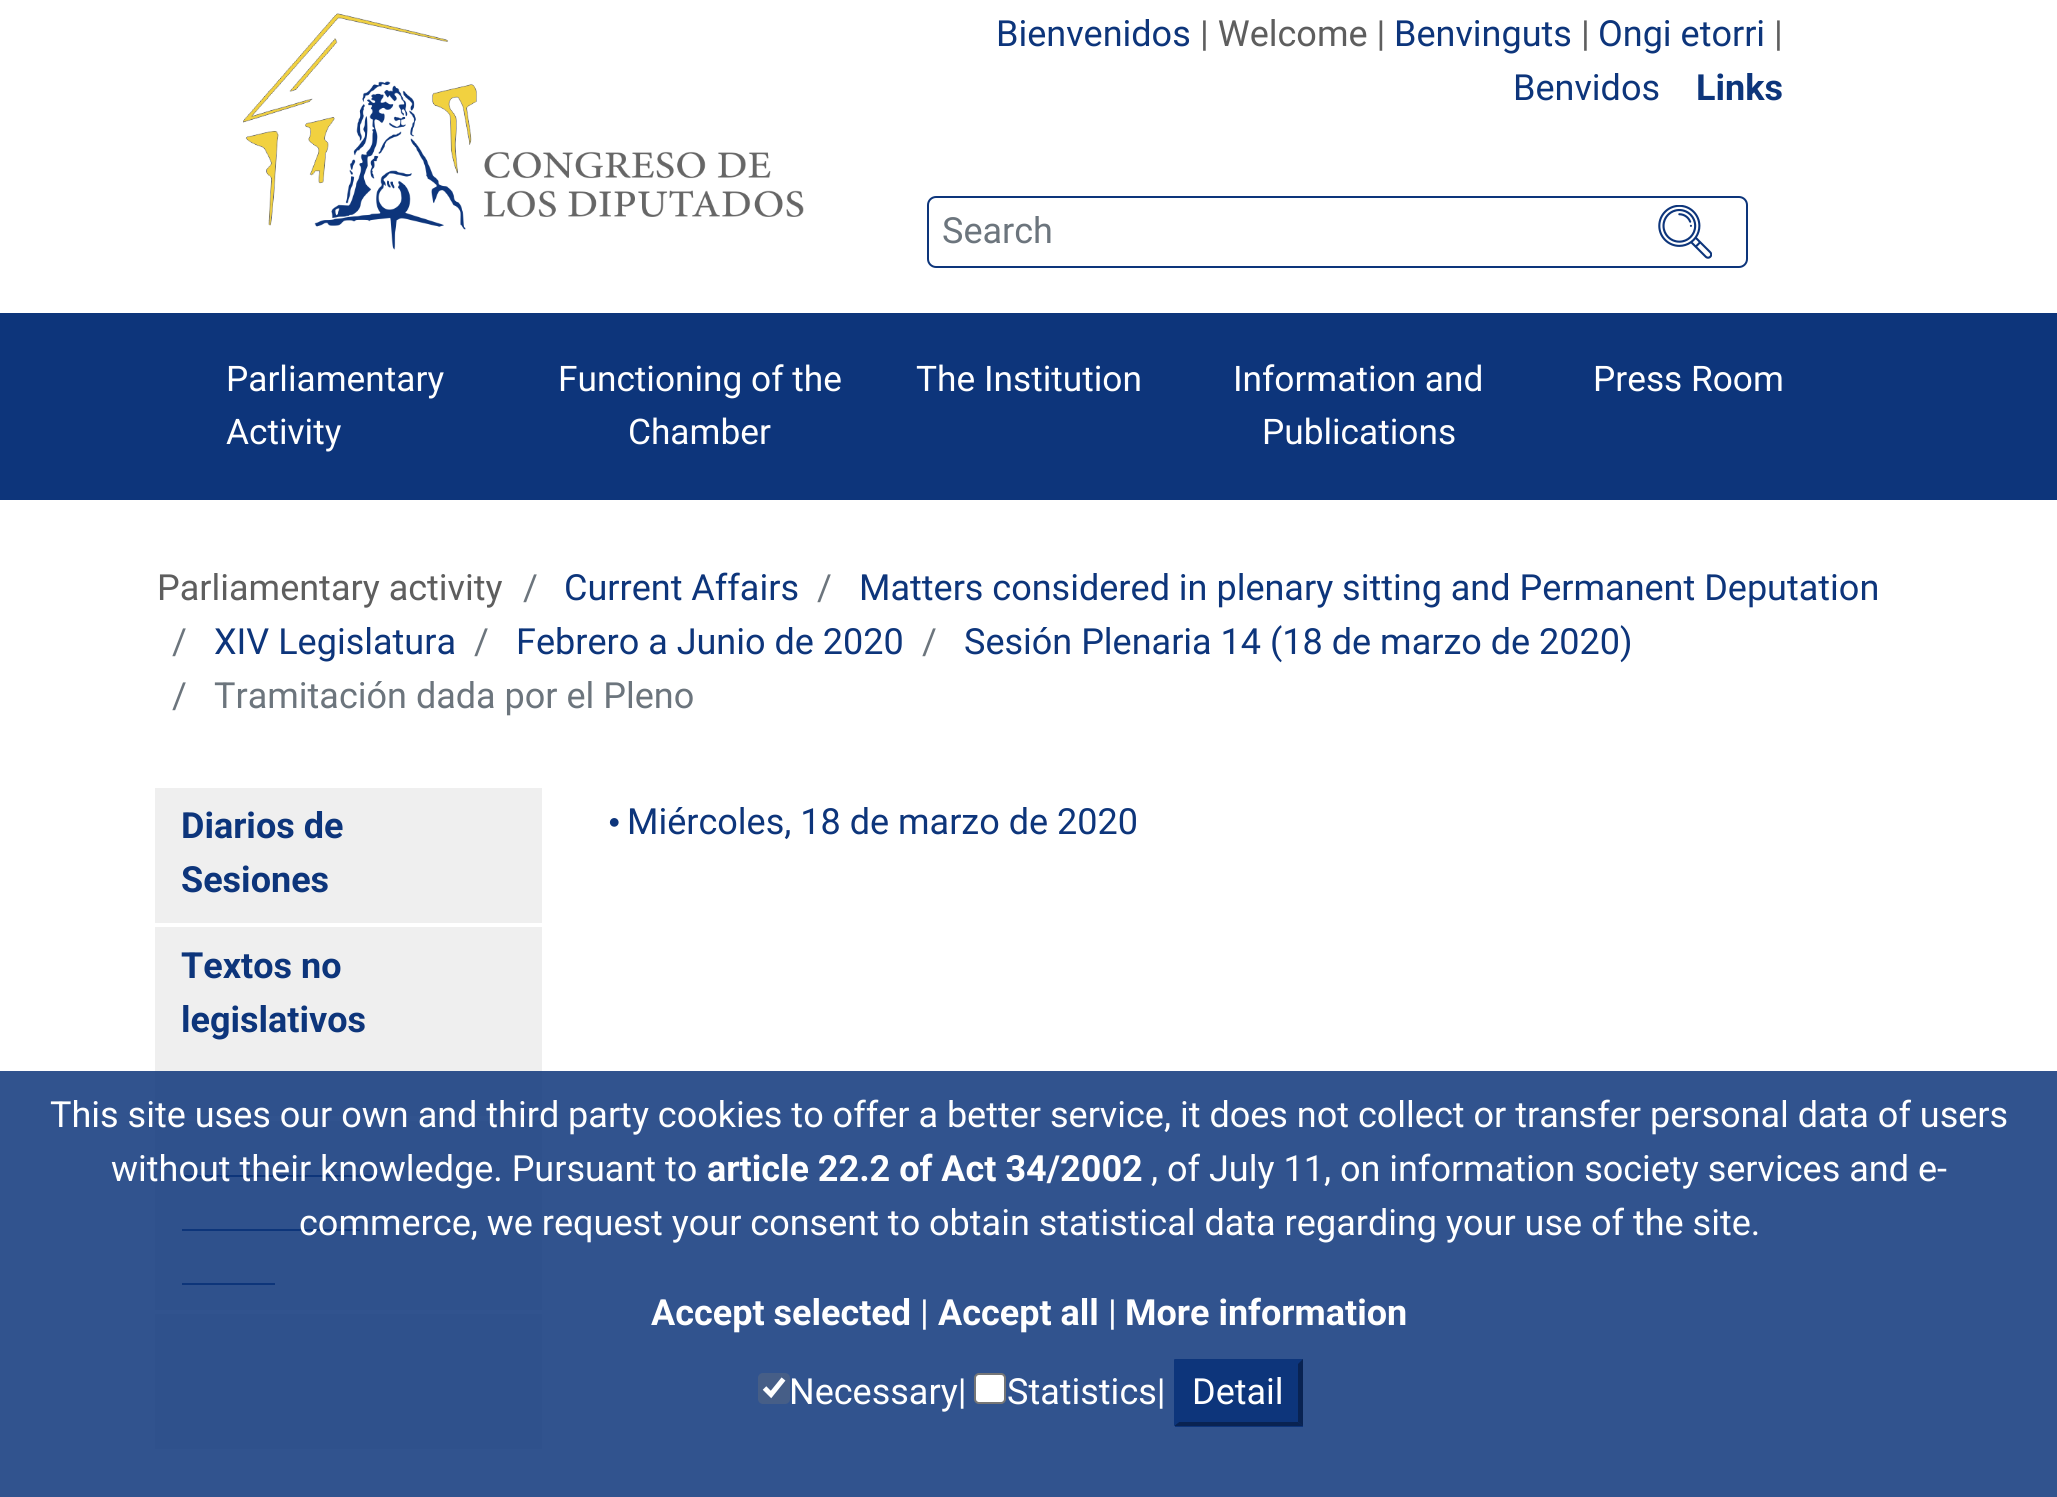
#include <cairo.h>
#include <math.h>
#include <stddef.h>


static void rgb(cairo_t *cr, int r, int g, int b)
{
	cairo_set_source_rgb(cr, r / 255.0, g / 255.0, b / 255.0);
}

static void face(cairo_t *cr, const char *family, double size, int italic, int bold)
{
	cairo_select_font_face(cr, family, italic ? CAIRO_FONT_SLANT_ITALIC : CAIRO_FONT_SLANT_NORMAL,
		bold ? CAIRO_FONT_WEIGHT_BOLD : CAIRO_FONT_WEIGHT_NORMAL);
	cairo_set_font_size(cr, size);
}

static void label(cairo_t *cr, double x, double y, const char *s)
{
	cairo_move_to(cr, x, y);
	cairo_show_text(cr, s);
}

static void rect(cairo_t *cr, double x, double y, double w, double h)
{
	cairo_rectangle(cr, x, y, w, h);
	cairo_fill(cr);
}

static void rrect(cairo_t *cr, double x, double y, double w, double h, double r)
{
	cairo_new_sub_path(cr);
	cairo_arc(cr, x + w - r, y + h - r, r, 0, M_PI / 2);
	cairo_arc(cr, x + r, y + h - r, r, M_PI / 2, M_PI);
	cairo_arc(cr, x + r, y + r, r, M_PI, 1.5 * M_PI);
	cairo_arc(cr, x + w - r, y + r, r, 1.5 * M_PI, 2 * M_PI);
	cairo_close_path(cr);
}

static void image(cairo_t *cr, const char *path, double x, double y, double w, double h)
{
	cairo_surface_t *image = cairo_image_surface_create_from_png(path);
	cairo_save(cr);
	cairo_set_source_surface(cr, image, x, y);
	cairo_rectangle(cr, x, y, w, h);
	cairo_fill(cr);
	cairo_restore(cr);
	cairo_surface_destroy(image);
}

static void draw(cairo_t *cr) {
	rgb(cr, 255, 255, 255);
	cairo_paint(cr);
	image(cr, "image0.png", 243, 13, 561, 237);
	face(cr, "Roboto", 36, 0, 0);
	rgb(cr, 13, 53, 123);
	label(cr, 996, 46, "Bienvenidos");
	rgb(cr, 94, 94, 94);
	label(cr, 1200, 46, "| Welcome |");
	rgb(cr, 13, 53, 123);
	label(cr, 1394, 46, "Benvinguts");
	rgb(cr, 94, 94, 94);
	label(cr, 1581, 46, "|");
	rgb(cr, 13, 53, 123);
	label(cr, 1598, 46, "Ongi etorri");
	rgb(cr, 94, 94, 94);
	label(cr, 1774, 46, "|");
	rgb(cr, 13, 53, 123);
	label(cr, 1513, 100, "Benvidos");
	face(cr, "Roboto", 36, 0, 1);
	label(cr, 1696, 100, "Links");
	rrect(cr, 928, 197, 819, 70, 8);
	cairo_stroke(cr);
	face(cr, "Roboto", 36, 0, 0);
	rgb(cr, 108, 117, 125);
	label(cr, 942, 243, "Search");
	image(cr, "image1.png", 1658, 205, 54, 54);
	rgb(cr, 13, 53, 123);
	rect(cr, 0, 313, 2057, 187);
	face(cr, "Roboto", 35.25, 0, 0);
	rgb(cr, 255, 255, 255);
	label(cr, 226, 391, "Parliamentary");
	label(cr, 226, 444, "Activity");
	label(cr, 558, 391, "Functioning of the");
	label(cr, 628, 444, "Chamber");
	label(cr, 916, 391, "The Institution");
	label(cr, 1233, 391, "Information and");
	label(cr, 1262, 444, "Publications");
	label(cr, 1593, 391, "Press Room");
	face(cr, "Roboto", 36, 0, 0);
	rgb(cr, 94, 94, 94);
	label(cr, 157, 600, "Parliamentary activity");
	rgb(cr, 108, 117, 125);
	label(cr, 523, 600, "/");
	rgb(cr, 13, 53, 123);
	label(cr, 564, 600, "Current Affairs");
	rgb(cr, 108, 117, 125);
	label(cr, 817, 600, "/");
	rgb(cr, 13, 53, 123);
	label(cr, 859, 600, "Matters considered in plenary sitting and Permanent Deputation");
	rgb(cr, 108, 117, 125);
	label(cr, 172, 654, "/");
	rgb(cr, 13, 53, 123);
	label(cr, 214, 654, "XIV Legislatura");
	rgb(cr, 108, 117, 125);
	label(cr, 474, 654, "/");
	rgb(cr, 13, 53, 123);
	label(cr, 516, 654, "Febrero a Junio de 2020");
	rgb(cr, 108, 117, 125);
	label(cr, 922, 654, "/");
	rgb(cr, 13, 53, 123);
	label(cr, 964, 654, "Sesión Plenaria 14 (18 de marzo de 2020)");
	rgb(cr, 108, 117, 125);
	label(cr, 172, 708, "/");
	label(cr, 214, 708, "Tramitación dada por el Pleno");
	rgb(cr, 239, 239, 239);
	rect(cr, 155, 788, 387, 135);
	face(cr, "Roboto", 36, 0, 1);
	rgb(cr, 13, 53, 123);
	label(cr, 181, 838, "Diarios de");
	label(cr, 181, 892, "Sesiones");
	rgb(cr, 239, 239, 239);
	rect(cr, 155, 927, 387, 189);
	rgb(cr, 13, 53, 123);
	label(cr, 181, 978, "Textos no");
	label(cr, 181, 1032, "legislativos");
	rgb(cr, 239, 239, 239);
	rect(cr, 155, 1121, 387, 189);
	rgb(cr, 13, 53, 123);
	rect(cr, 182, 1175, 196, 2);
	rect(cr, 182, 1229, 178, 2);
	rect(cr, 182, 1283, 93, 2);
	rgb(cr, 239, 239, 239);
	rect(cr, 155, 1314, 387, 135);
	image(cr, "image2.png", 609, 818, 10, 9);
	face(cr, "Roboto", 36, 0, 0);
	rgb(cr, 13, 53, 123);
	label(cr, 627, 834, "Miércoles, 18 de marzo de 2020");
	cairo_set_source_rgba(cr, 0.051, 0.208, 0.482, 0.85);
	rect(cr, 0, 1071, 2057, 426);
	rgb(cr, 255, 255, 255);
	label(cr, 50, 1127, "This site uses our own and third party cookies to offer a better service, it does not collect or transfer personal data of users");
	label(cr, 111, 1181, "without their knowledge. Pursuant to");
	face(cr, "Roboto", 36, 0, 1);
	label(cr, 707, 1181, "article 22.2 of Act 34/2002");
	face(cr, "Roboto", 36, 0, 0);
	label(cr, 1151, 1181, ", of July 11, on information society services and e-");
	label(cr, 299, 1235, "commerce, we request your consent to obtain statistical data regarding your use of the site.");
	face(cr, "Roboto", 36, 0, 1);
	label(cr, 651, 1325, "Accept selected");
	face(cr, "Roboto", 36, 0, 0);
	label(cr, 920, 1325, "|");
	face(cr, "Roboto", 36, 0, 1);
	label(cr, 938, 1325, "Accept all");
	face(cr, "Roboto", 36, 0, 0);
	label(cr, 1108, 1325, "|");
	face(cr, "Roboto", 36, 0, 1);
	label(cr, 1125, 1325, "More information");
	rgb(cr, 70, 94, 135);
	rrect(cr, 758, 1373, 32, 31, 5);
	cairo_fill(cr);
	cairo_new_path(cr);
	cairo_move_to(cr, 764.5, 1388);
	cairo_line_to(cr, 771, 1394.5);
	cairo_line_to(cr, 783.5, 1379);
	rgb(cr, 255, 255, 255);
	cairo_set_line_width(cr, 5);
	cairo_stroke(cr);
	face(cr, "Roboto", 36, 0, 0);
	label(cr, 789, 1404, "Necessary|");
	rrect(cr, 975, 1374, 30, 29, 4);
	cairo_fill_preserve(cr);
	rgb(cr, 118, 118, 118);
	cairo_set_line_width(cr, 2);
	cairo_stroke(cr);
	rgb(cr, 255, 255, 255);
	label(cr, 1007, 1404, "Statistics|");
	rgb(cr, 13, 53, 123);
	rect(cr, 1175, 1359, 128, 68);
	cairo_new_path(cr);
	cairo_move_to(cr, 1174, 1359);
	cairo_line_to(cr, 1303, 1359);
	cairo_line_to(cr, 1298, 1364);
	cairo_line_to(cr, 1179, 1364);
	cairo_close_path(cr);
	cairo_fill(cr);
	rgb(cr, 9, 35, 82);
	cairo_new_path(cr);
	cairo_move_to(cr, 1303, 1359);
	cairo_line_to(cr, 1303, 1426);
	cairo_line_to(cr, 1298, 1422);
	cairo_line_to(cr, 1298, 1364);
	cairo_close_path(cr);
	cairo_fill(cr);
	cairo_new_path(cr);
	cairo_move_to(cr, 1303, 1426);
	cairo_line_to(cr, 1174, 1426);
	cairo_line_to(cr, 1179, 1422);
	cairo_line_to(cr, 1298, 1422);
	cairo_close_path(cr);
	cairo_fill(cr);
	rgb(cr, 13, 53, 123);
	cairo_new_path(cr);
	cairo_move_to(cr, 1174, 1426);
	cairo_line_to(cr, 1174, 1359);
	cairo_line_to(cr, 1179, 1364);
	cairo_line_to(cr, 1179, 1422);
	cairo_close_path(cr);
	cairo_fill(cr);
	rgb(cr, 255, 255, 255);
	label(cr, 1192, 1404, "Detail");
}

int main(void) {
	cairo_surface_t *surface = cairo_image_surface_create(CAIRO_FORMAT_RGB24, 2057, 1497);
	cairo_t *cr = cairo_create(surface);
	cairo_font_options_t *options = cairo_font_options_create();
	cairo_font_options_set_hint_metrics(options, CAIRO_HINT_METRICS_OFF);
	cairo_font_options_set_hint_style(options, CAIRO_HINT_STYLE_NONE);
	cairo_set_font_options(cr, options);
	cairo_set_miter_limit(cr, 4);
	draw(cr);
	cairo_surface_write_to_png(surface, "render.png");
	cairo_font_options_destroy(options);
	cairo_destroy(cr);
	cairo_surface_destroy(surface);
	return 0;
}
